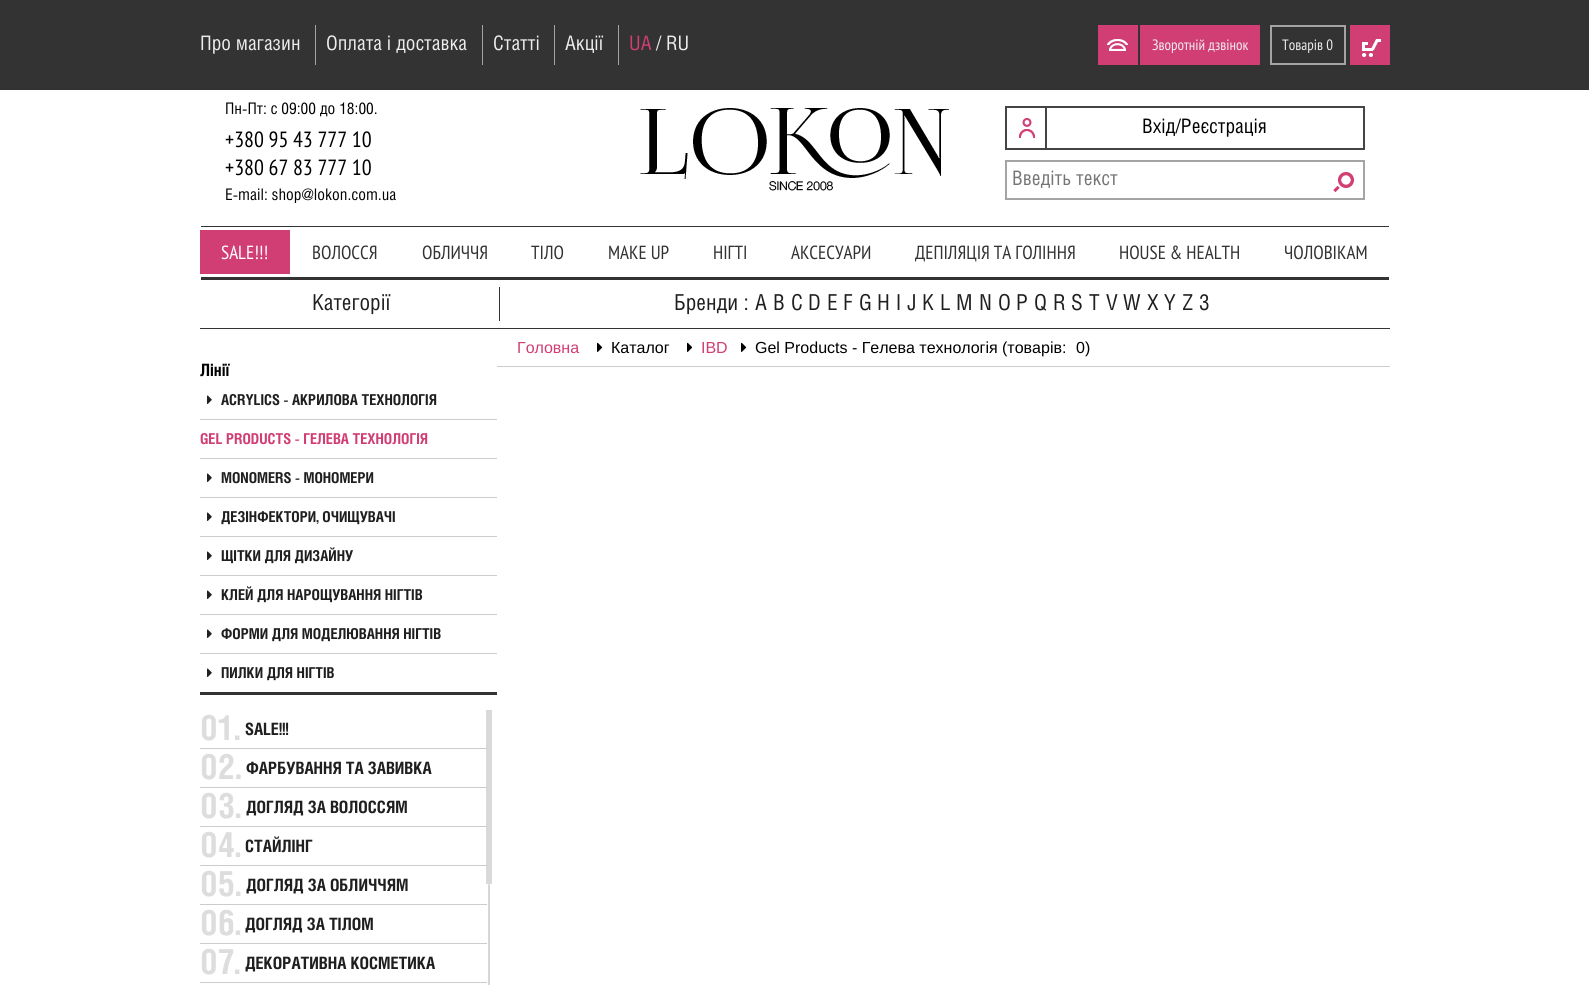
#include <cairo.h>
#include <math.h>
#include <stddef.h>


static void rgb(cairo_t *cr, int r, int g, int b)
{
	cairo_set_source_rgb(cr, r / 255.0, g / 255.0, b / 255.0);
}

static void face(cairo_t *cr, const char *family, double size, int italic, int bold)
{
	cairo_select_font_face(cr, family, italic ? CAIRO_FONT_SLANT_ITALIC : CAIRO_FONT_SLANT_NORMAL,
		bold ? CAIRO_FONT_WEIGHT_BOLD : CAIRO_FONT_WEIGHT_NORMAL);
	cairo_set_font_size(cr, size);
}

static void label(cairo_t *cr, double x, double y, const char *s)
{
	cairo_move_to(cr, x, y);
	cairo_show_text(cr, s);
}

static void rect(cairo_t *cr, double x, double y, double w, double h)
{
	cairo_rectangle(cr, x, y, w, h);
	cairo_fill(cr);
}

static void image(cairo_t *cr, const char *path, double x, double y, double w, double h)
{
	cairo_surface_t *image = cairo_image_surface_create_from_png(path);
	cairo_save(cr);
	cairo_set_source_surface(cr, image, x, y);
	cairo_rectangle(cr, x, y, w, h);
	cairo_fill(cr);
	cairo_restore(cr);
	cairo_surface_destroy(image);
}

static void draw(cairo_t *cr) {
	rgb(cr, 255, 255, 255);
	cairo_paint(cr);
	rgb(cr, 217, 217, 217);
	rect(cr, 486, 710, 6, 174);
	rgb(cr, 51, 51, 51);
	rect(cr, 0, 0, 1589, 90);
	face(cr, "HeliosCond", 20, 0, 0);
	rgb(cr, 237, 237, 237);
	label(cr, 200, 50, "Про магазин");
	rgb(cr, 164, 164, 164);
	rect(cr, 315, 25, 1, 40);
	rgb(cr, 237, 237, 237);
	label(cr, 326, 50, "Оплата і доставка");
	rgb(cr, 164, 164, 164);
	rect(cr, 482, 25, 1, 40);
	rgb(cr, 237, 237, 237);
	label(cr, 493, 50, "Статті");
	rgb(cr, 164, 164, 164);
	rect(cr, 554, 25, 1, 40);
	rgb(cr, 237, 237, 237);
	label(cr, 565, 50, "Акції");
	rgb(cr, 164, 164, 164);
	rect(cr, 618, 25, 1, 40);
	rgb(cr, 209, 62, 116);
	label(cr, 629, 50, "UA");
	rgb(cr, 237, 237, 237);
	label(cr, 656, 50, "/ RU");
	rgb(cr, 209, 62, 116);
	rect(cr, 1098, 25, 40, 40);
	image(cr, "image0.png", 1107, 39, 21, 12);
	rect(cr, 1140, 25, 120, 40);
	face(cr, "PT Sans Narrow", 15, 0, 0);
	rgb(cr, 237, 237, 237);
	label(cr, 1152, 50, "Зворотній дзвінок");
	cairo_rectangle(cr, 1271, 26, 74, 38);
	rgb(cr, 164, 164, 164);
	cairo_stroke(cr);
	rgb(cr, 237, 237, 237);
	label(cr, 1282, 50, "Товарів 0");
	rgb(cr, 209, 62, 116);
	rect(cr, 1350, 25, 40, 40);
	image(cr, "image1.png", 1362, 39, 19, 18);
	face(cr, "HeliosCond", 16, 0, 0);
	rgb(cr, 0, 0, 0);
	label(cr, 225, 114, "Пн-Пт: с 09:00 до 18:00.");
	face(cr, "PT Sans Narrow", 22, 0, 0);
	label(cr, 225, 147, "+380 95 43 777 10");
	label(cr, 225, 175, "+380 67 83 777 10");
	face(cr, "HeliosCond", 16, 0, 0);
	label(cr, 225, 200, "E-mail: shop@lokon.com.ua");
	image(cr, "image2.png", 640, 108, 309, 83);
	cairo_rectangle(cr, 1006, 107, 358, 42);
	rgb(cr, 68, 68, 68);
	cairo_stroke(cr);
	image(cr, "image3.png", 1019, 118, 17, 21);
	rect(cr, 1045, 108, 2, 40);
	face(cr, "HeliosCond", 20, 0, 0);
	rgb(cr, 0, 0, 0);
	label(cr, 1142, 133, "Вхід/Реєстрація");
	cairo_rectangle(cr, 1006, 161, 358, 38);
	rgb(cr, 164, 164, 164);
	cairo_stroke(cr);
	rgb(cr, 117, 117, 117);
	label(cr, 1012, 185, "Введіть текст");
	image(cr, "image4.png", 1333, 172, 21, 21);
	rgb(cr, 51, 51, 51);
	rect(cr, 201, 226, 1188, 1);
	rect(cr, 201, 277, 1188, 3);
	rgb(cr, 209, 62, 116);
	rect(cr, 200, 230, 90, 44);
	face(cr, "PT Sans Narrow", 19, 0, 0);
	rgb(cr, 255, 255, 255);
	label(cr, 221, 259, "SALE!!!");
	rgb(cr, 51, 51, 51);
	label(cr, 312, 259, "ВОЛОСCЯ");
	label(cr, 422, 259, "ОБЛИЧЧЯ");
	label(cr, 531, 259, "ТІЛО");
	label(cr, 608, 259, "MAKE UP");
	label(cr, 713, 259, "НІГТІ");
	label(cr, 791, 259, "АКСЕСУАРИ");
	label(cr, 915, 259, "ДЕПІЛЯЦІЯ ТА ГОЛІННЯ");
	label(cr, 1119, 259, "HOUSE & HEALTH");
	label(cr, 1284, 259, "ЧОЛОВІКАМ");
	rect(cr, 200, 328, 1190, 1);
	rect(cr, 499, 287, 1, 34);
	face(cr, "HeliosCond", 22, 0, 0);
	rgb(cr, 31, 31, 31);
	label(cr, 312, 310, "Категорії");
	label(cr, 674, 310, "Бренди :");
	label(cr, 755, 310, "A");
	label(cr, 773, 310, "B");
	label(cr, 791, 310, "C");
	label(cr, 808, 310, "D");
	label(cr, 827, 310, "E");
	label(cr, 843, 310, "F");
	label(cr, 859, 310, "G");
	label(cr, 877, 310, "H");
	label(cr, 896, 310, "I");
	label(cr, 907, 310, "J");
	label(cr, 922, 310, "K");
	label(cr, 940, 310, "L");
	label(cr, 956, 310, "M");
	label(cr, 979, 310, "N");
	label(cr, 998, 310, "O");
	label(cr, 1016, 310, "P");
	label(cr, 1034, 310, "Q");
	label(cr, 1053, 310, "R");
	label(cr, 1071, 310, "S");
	label(cr, 1089, 310, "T");
	label(cr, 1106, 310, "V");
	label(cr, 1123, 310, "W");
	label(cr, 1147, 310, "X");
	label(cr, 1164, 310, "Y");
	label(cr, 1182, 310, "Z");
	label(cr, 1199, 310, "3");
	rgb(cr, 204, 204, 204);
	rect(cr, 497, 366, 893, 1);
	face(cr, "Liberation Sans", 16, 0, 0);
	rgb(cr, 209, 62, 116);
	label(cr, 517, 353, "Головна");
	image(cr, "image5.png", 597, 342, 6, 10);
	rgb(cr, 0, 0, 0);
	label(cr, 611, 353, "Каталог");
	image(cr, "image5.png", 687, 342, 6, 10);
	rgb(cr, 209, 62, 116);
	label(cr, 701, 353, "IBD");
	image(cr, "image5.png", 741, 342, 6, 10);
	rgb(cr, 0, 0, 0);
	label(cr, 755, 353, "Gel Products - Гелева технологія (товарів:");
	label(cr, 1076, 353, "0)");
	rgb(cr, 51, 51, 51);
	rect(cr, 200, 692, 297, 3);
	face(cr, "HeliosCond", 17, 0, 1);
	rgb(cr, 0, 0, 0);
	label(cr, 200, 376, "Лінії");
	rgb(cr, 204, 204, 204);
	rect(cr, 200, 419, 297, 1);
	image(cr, "image6.png", 207, 395, 5, 9);
	face(cr, "HeliosCond", 15, 0, 1);
	rgb(cr, 31, 31, 31);
	label(cr, 221, 405, "ACRYLICS - АКРИЛОВА ТЕХНОЛОГІЯ");
	rgb(cr, 204, 204, 204);
	rect(cr, 200, 458, 297, 1);
	rgb(cr, 209, 62, 116);
	label(cr, 200, 444, "GEL PRODUCTS - ГЕЛЕВА ТЕХНОЛОГІЯ");
	rgb(cr, 204, 204, 204);
	rect(cr, 200, 497, 297, 1);
	image(cr, "image6.png", 207, 473, 5, 9);
	rgb(cr, 31, 31, 31);
	label(cr, 221, 483, "MONOMERS - МОНОМЕРИ");
	rgb(cr, 204, 204, 204);
	rect(cr, 200, 536, 297, 1);
	image(cr, "image6.png", 207, 512, 5, 9);
	rgb(cr, 31, 31, 31);
	label(cr, 221, 522, "ДЕЗІНФЕКТОРИ, ОЧИЩУВАЧІ");
	rgb(cr, 204, 204, 204);
	rect(cr, 200, 575, 297, 1);
	image(cr, "image6.png", 207, 551, 5, 9);
	rgb(cr, 31, 31, 31);
	label(cr, 221, 561, "ЩІТКИ ДЛЯ ДИЗАЙНУ");
	rgb(cr, 204, 204, 204);
	rect(cr, 200, 614, 297, 1);
	image(cr, "image6.png", 207, 590, 5, 9);
	rgb(cr, 31, 31, 31);
	label(cr, 221, 600, "КЛЕЙ ДЛЯ НАРОЩУВАННЯ НІГТІВ");
	rgb(cr, 204, 204, 204);
	rect(cr, 200, 653, 297, 1);
	image(cr, "image6.png", 207, 629, 5, 9);
	rgb(cr, 31, 31, 31);
	label(cr, 221, 639, "ФОРМИ ДЛЯ МОДЕЛЮВАННЯ НІГТІВ");
	image(cr, "image6.png", 207, 668, 5, 9);
	label(cr, 221, 678, "ПИЛКИ ДЛЯ НІГТІВ");
	rgb(cr, 204, 204, 204);
	rect(cr, 200, 748, 287, 1);
	face(cr, "HeliosCond", 35, 0, 1);
	rgb(cr, 221, 221, 221);
	label(cr, 200, 740, "01.");
	face(cr, "HeliosCond", 17, 0, 1);
	rgb(cr, 31, 31, 31);
	label(cr, 245, 735, "SALE!!!");
	rgb(cr, 204, 204, 204);
	rect(cr, 200, 787, 287, 1);
	face(cr, "HeliosCond", 35, 0, 1);
	rgb(cr, 221, 221, 221);
	label(cr, 200, 779, "02.");
	face(cr, "HeliosCond", 17, 0, 1);
	rgb(cr, 31, 31, 31);
	label(cr, 246, 774, "ФАРБУВАННЯ ТА ЗАВИВКА");
	rgb(cr, 204, 204, 204);
	rect(cr, 200, 826, 287, 1);
	face(cr, "HeliosCond", 35, 0, 1);
	rgb(cr, 221, 221, 221);
	label(cr, 200, 818, "03.");
	face(cr, "HeliosCond", 17, 0, 1);
	rgb(cr, 31, 31, 31);
	label(cr, 246, 813, "ДОГЛЯД ЗА ВОЛОССЯМ");
	rgb(cr, 204, 204, 204);
	rect(cr, 200, 865, 287, 1);
	face(cr, "HeliosCond", 35, 0, 1);
	rgb(cr, 221, 221, 221);
	label(cr, 200, 857, "04.");
	face(cr, "HeliosCond", 17, 0, 1);
	rgb(cr, 31, 31, 31);
	label(cr, 245, 852, "СТАЙЛІНГ");
	rgb(cr, 204, 204, 204);
	rect(cr, 200, 904, 287, 1);
	face(cr, "HeliosCond", 35, 0, 1);
	rgb(cr, 221, 221, 221);
	label(cr, 200, 896, "05.");
	face(cr, "HeliosCond", 17, 0, 1);
	rgb(cr, 31, 31, 31);
	label(cr, 246, 891, "ДОГЛЯД ЗА ОБЛИЧЧЯМ");
	rgb(cr, 204, 204, 204);
	rect(cr, 200, 943, 287, 1);
	face(cr, "HeliosCond", 35, 0, 1);
	rgb(cr, 221, 221, 221);
	label(cr, 200, 935, "06.");
	face(cr, "HeliosCond", 17, 0, 1);
	rgb(cr, 31, 31, 31);
	label(cr, 245, 930, "ДОГЛЯД ЗА ТІЛОМ");
	rgb(cr, 204, 204, 204);
	rect(cr, 200, 982, 287, 1);
	face(cr, "HeliosCond", 35, 0, 1);
	rgb(cr, 221, 221, 221);
	label(cr, 200, 974, "07.");
	face(cr, "HeliosCond", 17, 0, 1);
	rgb(cr, 31, 31, 31);
	label(cr, 245, 969, "ДЕКОРАТИВНА КОСМЕТИКА");
	rgb(cr, 215, 215, 215);
	cairo_new_path(cr);
	cairo_move_to(cr, 489, 884);
	cairo_curve_to(cr, 489.5, 884, 490, 884.5, 490, 885);
	cairo_line_to(cr, 490, 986);
	cairo_line_to(cr, 488, 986);
	cairo_line_to(cr, 488, 885);
	cairo_curve_to(cr, 488, 884.5, 488.5, 884, 489, 884);
	cairo_close_path(cr);
	cairo_fill(cr);
}

int main(void) {
	cairo_surface_t *surface = cairo_image_surface_create(CAIRO_FORMAT_RGB24, 1589, 985);
	cairo_t *cr = cairo_create(surface);
	cairo_font_options_t *options = cairo_font_options_create();
	cairo_font_options_set_hint_metrics(options, CAIRO_HINT_METRICS_OFF);
	cairo_font_options_set_hint_style(options, CAIRO_HINT_STYLE_NONE);
	cairo_set_font_options(cr, options);
	cairo_set_miter_limit(cr, 4);
	draw(cr);
	cairo_surface_write_to_png(surface, "render.png");
	cairo_font_options_destroy(options);
	cairo_destroy(cr);
	cairo_surface_destroy(surface);
	return 0;
}
